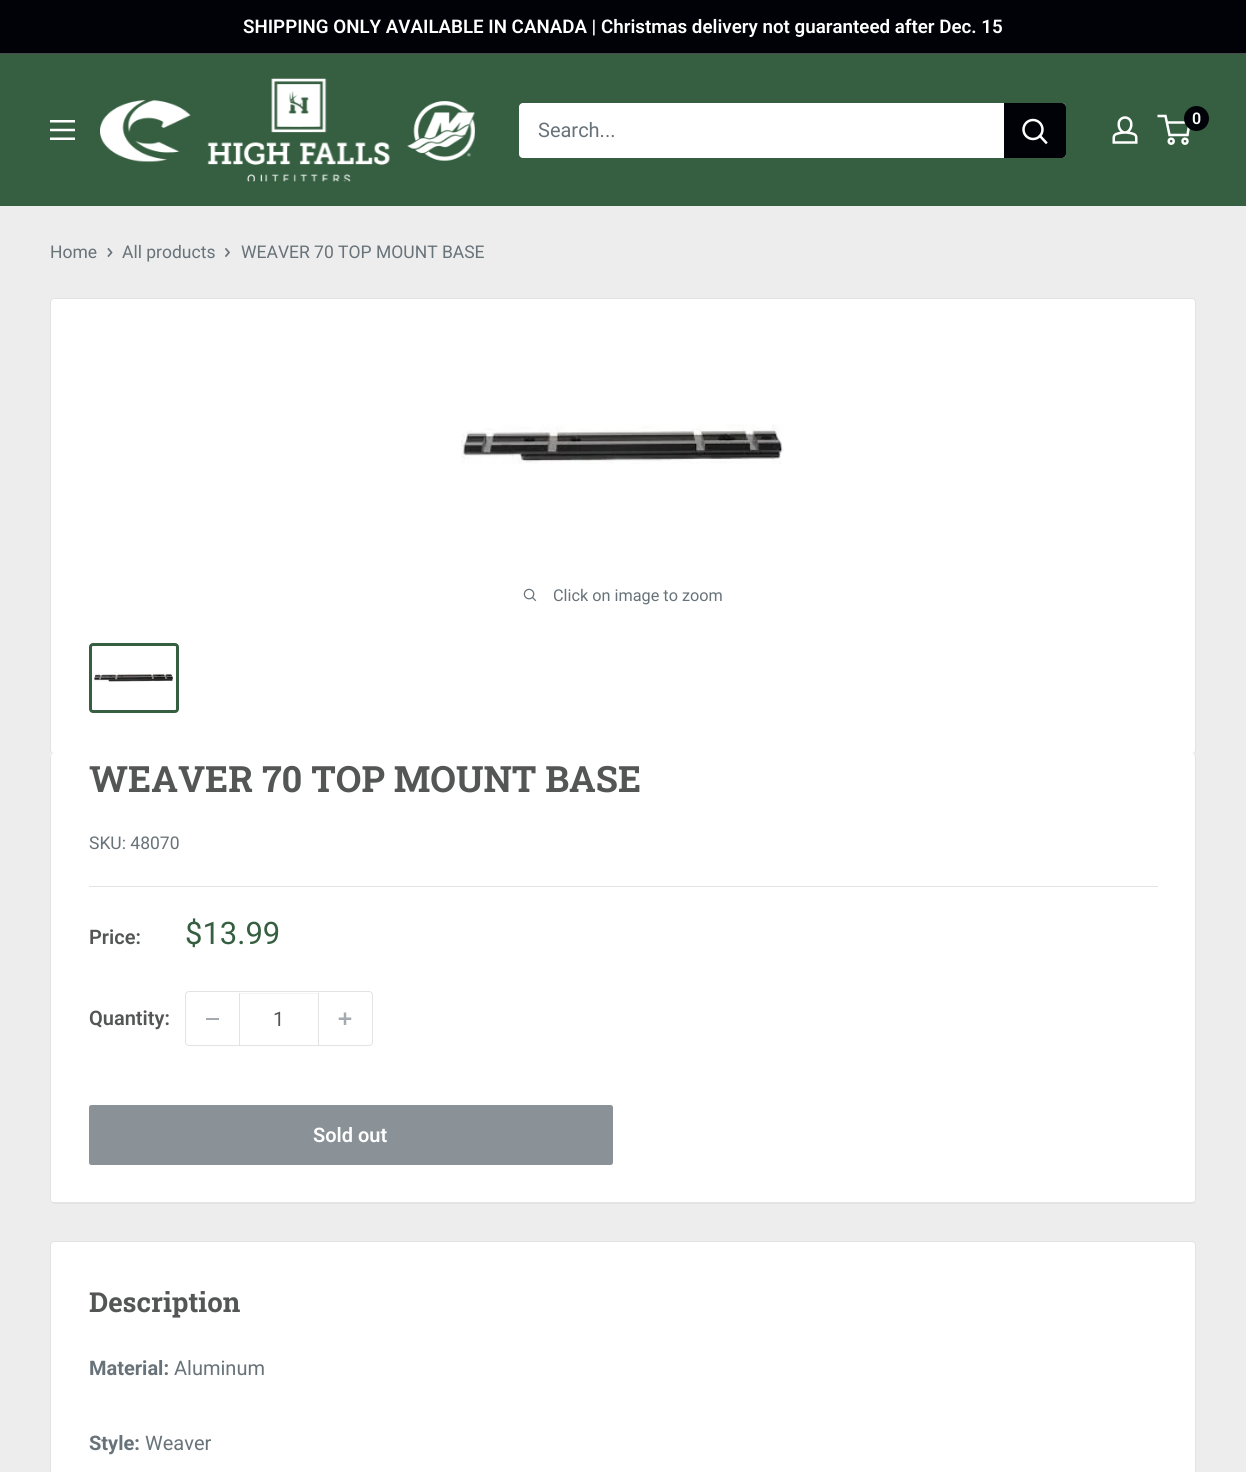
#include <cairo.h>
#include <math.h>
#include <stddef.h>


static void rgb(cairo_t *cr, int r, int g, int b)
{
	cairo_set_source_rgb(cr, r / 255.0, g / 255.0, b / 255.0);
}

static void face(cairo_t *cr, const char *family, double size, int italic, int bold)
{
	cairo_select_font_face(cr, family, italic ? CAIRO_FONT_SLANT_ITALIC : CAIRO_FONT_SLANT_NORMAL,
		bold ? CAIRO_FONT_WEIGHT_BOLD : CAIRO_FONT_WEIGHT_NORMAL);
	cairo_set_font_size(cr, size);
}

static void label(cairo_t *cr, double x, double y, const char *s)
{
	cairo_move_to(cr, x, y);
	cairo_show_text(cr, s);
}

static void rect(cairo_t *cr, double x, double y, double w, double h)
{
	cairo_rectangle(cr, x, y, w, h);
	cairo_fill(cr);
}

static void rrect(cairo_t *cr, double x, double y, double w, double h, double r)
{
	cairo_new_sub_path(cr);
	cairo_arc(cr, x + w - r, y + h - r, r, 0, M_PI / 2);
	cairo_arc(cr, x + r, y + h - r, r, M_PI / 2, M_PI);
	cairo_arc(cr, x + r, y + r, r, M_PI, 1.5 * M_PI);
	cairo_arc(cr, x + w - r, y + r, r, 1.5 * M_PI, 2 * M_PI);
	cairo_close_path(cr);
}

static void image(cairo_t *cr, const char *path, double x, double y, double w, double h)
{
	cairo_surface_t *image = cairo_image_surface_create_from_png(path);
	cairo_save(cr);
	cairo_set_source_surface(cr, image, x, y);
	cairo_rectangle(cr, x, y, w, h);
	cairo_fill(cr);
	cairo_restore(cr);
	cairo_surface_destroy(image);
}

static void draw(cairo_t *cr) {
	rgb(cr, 237, 237, 237);
	cairo_paint(cr);
	rgb(cr, 0, 2, 8);
	rect(cr, 0, 0, 1246, 53);
	rgb(cr, 73, 75, 79);
	rect(cr, 0, 53, 1246, 1);
	face(cr, "Roboto SemiBold", 18.75, 0, 0);
	rgb(cr, 255, 255, 255);
	label(cr, 243, 33, "SHIPPING ONLY AVAILABLE IN CANADA | Christmas delivery not guaranteed after Dec. 15");
	rgb(cr, 53, 95, 64);
	rect(cr, 0, 54, 1246, 152);
	image(cr, "image0.png", 100, 78, 375, 104);
	image(cr, "image1.png", 1112, 116, 26, 28);
	cairo_arc(cr, 1171.2, 141.2, 2.5, 0, 2 * M_PI);
	rgb(cr, 255, 255, 255);
	cairo_set_line_width(cr, 2.5);
	cairo_stroke(cr);
	cairo_arc(cr, 1185, 141.2, 2.5, 0, 2 * M_PI);
	cairo_stroke(cr);
	cairo_new_path(cr);
	cairo_move_to(cr, 1166.5, 122.5);
	cairo_line_to(cr, 1189.5, 122.5);
	cairo_line_to(cr, 1187.5, 135);
	cairo_line_to(cr, 1169.5, 135);
	cairo_line_to(cr, 1165.5, 116);
	cairo_line_to(cr, 1157.5, 116);
	cairo_stroke(cr);
	rgb(cr, 0, 2, 8);
	cairo_arc(cr, 1196.5, 118.5, 12.5, 0, 2 * M_PI);
	cairo_fill(cr);
	face(cr, "Roboto SemiBold", 16, 0, 0);
	rgb(cr, 255, 255, 255);
	label(cr, 1192, 124, "0");
	image(cr, "image2.png", 50, 120, 25, 20);
	rrect(cr, 519, 103, 547, 55, 4);
	cairo_fill(cr);
	face(cr, "Roboto", 20, 0, 0);
	rgb(cr, 103, 114, 121);
	label(cr, 538, 137, "Search...");
	rgb(cr, 0, 2, 8);
	cairo_new_path(cr);
	cairo_move_to(cr, 1004, 103);
	cairo_line_to(cr, 1062, 103);
	cairo_curve_to(cr, 1064, 103, 1066, 105, 1066, 107);
	cairo_line_to(cr, 1066, 154);
	cairo_curve_to(cr, 1066, 156, 1064, 158, 1062, 158);
	cairo_line_to(cr, 1004, 158);
	cairo_close_path(cr);
	cairo_fill(cr);
	cairo_new_path(cr);
	cairo_move_to(cr, 1046, 142.5);
	cairo_line_to(cr, 1040, 136);
	rgb(cr, 255, 255, 255);
	cairo_set_line_cap(cr, CAIRO_LINE_CAP_SQUARE);
	cairo_stroke(cr);
	cairo_arc(cr, 1033, 129.5, 9.5, 0, 2 * M_PI);
	cairo_set_line_cap(cr, CAIRO_LINE_CAP_BUTT);
	cairo_stroke(cr);
	face(cr, "Roboto", 17.5, 0, 0);
	rgb(cr, 103, 114, 121);
	label(cr, 50, 258, "Home");
	cairo_new_path(cr);
	cairo_move_to(cr, 108.5, 249);
	cairo_line_to(cr, 111.5, 252.5);
	cairo_line_to(cr, 108.5, 256);
	cairo_set_line_width(cr, 1.7);
	cairo_set_line_cap(cr, CAIRO_LINE_CAP_SQUARE);
	cairo_stroke(cr);
	label(cr, 122, 258, "All products");
	cairo_new_path(cr);
	cairo_move_to(cr, 226, 249);
	cairo_line_to(cr, 229, 252.5);
	cairo_line_to(cr, 226, 256);
	cairo_stroke(cr);
	label(cr, 241, 258, "WEAVER 70 TOP MOUNT BASE");
	rgb(cr, 255, 255, 255);
	rrect(cr, 50.5, 298.5, 1145, 455, 3.5);
	cairo_fill_preserve(cr);
	rgb(cr, 225, 227, 228);
	cairo_set_line_width(cr, 1);
	cairo_set_line_cap(cr, CAIRO_LINE_CAP_BUTT);
	cairo_stroke(cr);
	image(cr, "image3.png", 461, 424, 323, 40);
	image(cr, "image4.png", 523, 588, 14, 14);
	face(cr, "Roboto", 16.25, 0, 0);
	rgb(cr, 103, 114, 121);
	label(cr, 553, 601, "Click on image to zoom");
	rrect(cr, 90.5, 644.5, 87, 67, 2.5);
	rgb(cr, 53, 95, 64);
	cairo_set_line_width(cr, 3);
	cairo_stroke(cr);
	image(cr, "image5.png", 94, 672, 79, 10);
	rgb(cr, 255, 255, 255);
	cairo_new_path(cr);
	cairo_move_to(cr, 54, 753);
	cairo_curve_to(cr, 51, 753, 50, 755, 50, 758);
	cairo_curve_to(cr, 50, 755, 52, 754, 54, 754);
	cairo_line_to(cr, 1192, 754);
	cairo_curve_to(cr, 1194, 754, 1195, 755, 1196, 756);
	cairo_curve_to(cr, 1195, 754, 1194, 753, 1192, 753);
	cairo_close_path(cr);
	cairo_fill(cr);
	rrect(cr, 50, 754, 1146, 450, 4);
	cairo_fill(cr);
	rgb(cr, 225, 227, 228);
	cairo_set_fill_rule(cr, CAIRO_FILL_RULE_EVEN_ODD);
	cairo_new_path(cr);
	cairo_move_to(cr, 54, 754);
	cairo_line_to(cr, 1192, 754);
	cairo_curve_to(cr, 1195, 754, 1196, 755, 1196, 758);
	cairo_line_to(cr, 1196, 1200);
	cairo_curve_to(cr, 1196, 1202, 1195, 1204, 1192, 1204);
	cairo_line_to(cr, 54, 1204);
	cairo_curve_to(cr, 52, 1204, 50, 1202, 50, 1200);
	cairo_line_to(cr, 50, 758);
	cairo_curve_to(cr, 50, 755, 52, 754, 54, 754);
	cairo_close_path(cr);
	cairo_move_to(cr, 54, 754);
	cairo_line_to(cr, 1192, 754);
	cairo_curve_to(cr, 1194, 754, 1195, 755, 1195, 758);
	cairo_line_to(cr, 1195, 1200);
	cairo_curve_to(cr, 1195, 1201, 1194, 1202, 1192, 1202);
	cairo_line_to(cr, 54, 1202);
	cairo_curve_to(cr, 52, 1202, 51, 1201, 51, 1200);
	cairo_line_to(cr, 51, 758);
	cairo_curve_to(cr, 51, 755, 52, 754, 54, 754);
	cairo_close_path(cr);
	cairo_fill(cr);
	face(cr, "Roboto Slab", 36.25, 0, 1);
	rgb(cr, 84, 86, 85);
	label(cr, 89, 792, "WEAVER 70 TOP MOUNT BASE");
	face(cr, "Roboto", 17.5, 0, 0);
	rgb(cr, 103, 114, 121);
	label(cr, 89, 849, "SKU: 48070");
	rgb(cr, 225, 227, 228);
	rect(cr, 89, 886, 1069, 1);
	face(cr, "Roboto SemiBold", 20, 0, 0);
	rgb(cr, 84, 86, 85);
	label(cr, 89, 944, "Price:");
	face(cr, "Roboto", 31, 0, 0);
	rgb(cr, 53, 95, 64);
	label(cr, 185, 944, "$13.99");
	face(cr, "Roboto SemiBold", 20, 0, 0);
	rgb(cr, 84, 86, 85);
	label(cr, 89, 1025, "Quantity:");
	rrect(cr, 185.5, 991.5, 187, 54, 3.5);
	rgb(cr, 225, 227, 228);
	cairo_set_line_width(cr, 1);
	cairo_stroke(cr);
	rgb(cr, 164, 170, 175);
	rect(cr, 206, 1018, 13, 2);
	rgb(cr, 243, 244, 244);
	rect(cr, 240, 993, 78, 1);
	rgb(cr, 225, 227, 228);
	rect(cr, 318, 993, 1, 52);
	rect(cr, 239, 993, 1, 52);
	face(cr, "Roboto", 20, 0, 0);
	rgb(cr, 84, 86, 85);
	label(cr, 273, 1026, "1");
	image(cr, "image6.png", 338, 1012, 14, 13);
	rgb(cr, 138, 146, 151);
	rrect(cr, 89.5, 1105.5, 523, 59, 2);
	cairo_fill_preserve(cr);
	cairo_stroke(cr);
	face(cr, "Roboto SemiBold", 20, 0, 0);
	rgb(cr, 255, 255, 255);
	label(cr, 313, 1142, "Sold out");
	rrect(cr, 50.5, 1241.5, 1145, 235, 3.5);
	cairo_fill_preserve(cr);
	rgb(cr, 225, 227, 228);
	cairo_stroke(cr);
	face(cr, "Roboto Slab", 27.5, 0, 1);
	rgb(cr, 84, 86, 85);
	label(cr, 89, 1312, "Description");
	face(cr, "Roboto", 20, 0, 1);
	rgb(cr, 103, 114, 121);
	label(cr, 89, 1375, "Material:");
	face(cr, "Roboto", 20, 0, 0);
	label(cr, 174, 1375, "Aluminum");
	face(cr, "Roboto", 20, 0, 1);
	label(cr, 89, 1450, "Style:");
	face(cr, "Roboto", 20, 0, 0);
	label(cr, 145, 1450, "Weaver");
}

int main(void) {
	cairo_surface_t *surface = cairo_image_surface_create(CAIRO_FORMAT_RGB24, 1246, 1472);
	cairo_t *cr = cairo_create(surface);
	cairo_font_options_t *options = cairo_font_options_create();
	cairo_font_options_set_hint_metrics(options, CAIRO_HINT_METRICS_OFF);
	cairo_font_options_set_hint_style(options, CAIRO_HINT_STYLE_NONE);
	cairo_set_font_options(cr, options);
	cairo_set_miter_limit(cr, 4);
	draw(cr);
	cairo_surface_write_to_png(surface, "render.png");
	cairo_font_options_destroy(options);
	cairo_destroy(cr);
	cairo_surface_destroy(surface);
	return 0;
}
